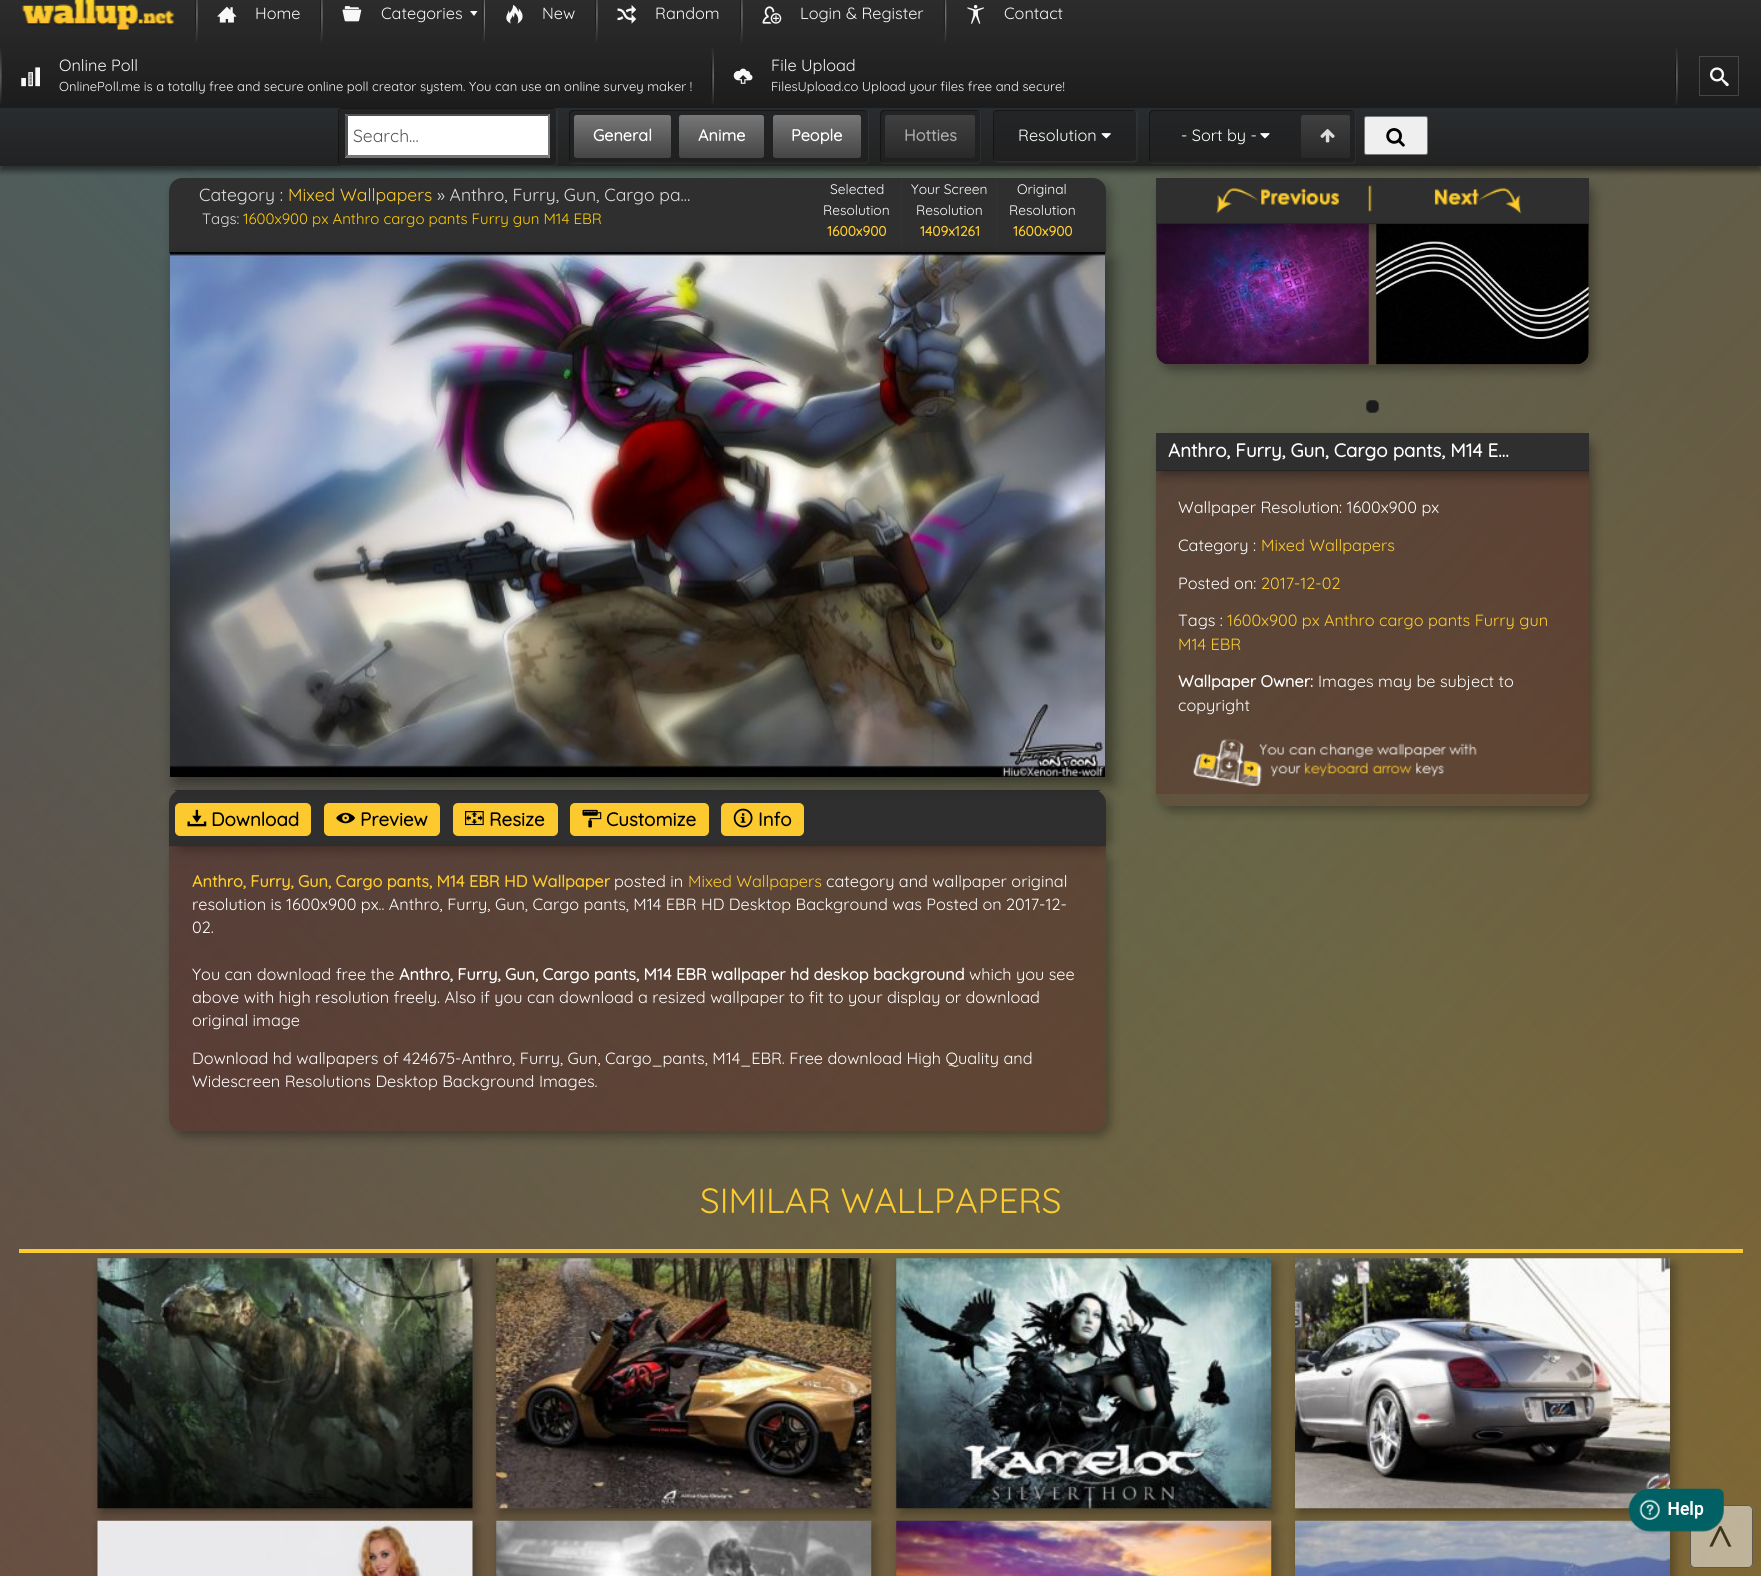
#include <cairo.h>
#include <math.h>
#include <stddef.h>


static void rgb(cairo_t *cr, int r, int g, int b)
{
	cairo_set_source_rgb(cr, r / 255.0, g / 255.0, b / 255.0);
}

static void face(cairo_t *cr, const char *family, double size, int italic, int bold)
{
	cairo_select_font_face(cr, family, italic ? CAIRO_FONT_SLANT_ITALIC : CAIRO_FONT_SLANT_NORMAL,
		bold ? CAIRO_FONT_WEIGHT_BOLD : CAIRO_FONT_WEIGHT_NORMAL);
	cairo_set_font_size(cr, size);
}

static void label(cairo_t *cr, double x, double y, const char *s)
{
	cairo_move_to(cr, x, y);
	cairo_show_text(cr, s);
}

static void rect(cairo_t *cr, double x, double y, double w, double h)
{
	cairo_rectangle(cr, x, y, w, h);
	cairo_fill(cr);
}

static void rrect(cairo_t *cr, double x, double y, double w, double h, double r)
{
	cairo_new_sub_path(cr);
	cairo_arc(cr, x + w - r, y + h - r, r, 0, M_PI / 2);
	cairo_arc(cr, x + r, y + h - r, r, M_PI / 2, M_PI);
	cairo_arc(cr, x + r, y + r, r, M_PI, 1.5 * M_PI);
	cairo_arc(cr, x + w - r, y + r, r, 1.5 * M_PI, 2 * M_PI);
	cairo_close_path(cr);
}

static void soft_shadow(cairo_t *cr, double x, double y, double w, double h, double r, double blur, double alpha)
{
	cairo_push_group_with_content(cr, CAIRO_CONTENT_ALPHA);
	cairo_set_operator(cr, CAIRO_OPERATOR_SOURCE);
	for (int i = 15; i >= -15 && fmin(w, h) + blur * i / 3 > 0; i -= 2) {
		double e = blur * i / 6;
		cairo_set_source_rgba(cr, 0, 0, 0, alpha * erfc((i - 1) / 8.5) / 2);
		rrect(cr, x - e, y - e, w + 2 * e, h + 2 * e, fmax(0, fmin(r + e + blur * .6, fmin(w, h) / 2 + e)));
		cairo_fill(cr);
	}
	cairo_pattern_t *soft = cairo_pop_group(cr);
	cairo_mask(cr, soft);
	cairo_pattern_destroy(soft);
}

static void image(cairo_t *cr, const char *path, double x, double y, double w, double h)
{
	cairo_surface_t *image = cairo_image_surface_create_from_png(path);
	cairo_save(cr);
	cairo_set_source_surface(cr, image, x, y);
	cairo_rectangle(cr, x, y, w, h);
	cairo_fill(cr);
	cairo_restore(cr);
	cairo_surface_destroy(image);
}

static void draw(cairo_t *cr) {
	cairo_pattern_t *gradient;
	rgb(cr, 255, 255, 255);
	cairo_paint(cr);
	gradient = cairo_pattern_create_linear(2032, 253, -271, 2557);
	cairo_pattern_add_color_stop_rgba(gradient, 0.1, 0.498, 0.329, 0.161, 1);
	cairo_pattern_add_color_stop_rgba(gradient, 0.8, 0.584, 0.584, 0.227, 1);
	cairo_set_source(cr, gradient);
	cairo_pattern_destroy(gradient);
	rect(cr, 0, 166, 1761, 1410);
	gradient = cairo_pattern_create_linear(-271, 253, 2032, 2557);
	cairo_pattern_add_color_stop_rgba(gradient, 0.1, 0.29, 0.392, 0.384, 1);
	cairo_pattern_add_color_stop_rgba(gradient, 0.8, 0.29, 0.392, 0.384, 0);
	cairo_set_source(cr, gradient);
	cairo_pattern_destroy(gradient);
	rect(cr, 0, 166, 1761, 1410);
	gradient = cairo_pattern_create_linear(-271, 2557, 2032, 253);
	cairo_pattern_add_color_stop_rgba(gradient, 0, 0.412, 0.216, 0.208, 1);
	cairo_pattern_add_color_stop_rgba(gradient, 0.7, 0.412, 0.216, 0.208, 0);
	cairo_set_source(cr, gradient);
	cairo_pattern_destroy(gradient);
	rect(cr, 0, 166, 1761, 1410);
	rgb(cr, 0, 0, 0);
	soft_shadow(cr, 0, 114, 1761, 57, 0, 3, 0.5);
	cairo_rectangle(cr, -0.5, 106.5, 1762, 59);
	rgb(cr, 34, 34, 34);
	cairo_set_line_width(cr, 1);
	cairo_stroke(cr);
	gradient = cairo_pattern_create_linear(881, -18, 881, 108);
	cairo_pattern_add_color_stop_rgba(gradient, 0, 0.184, 0.184, 0.184, 1);
	cairo_pattern_add_color_stop_rgba(gradient, 1, 0.11, 0.11, 0.11, 1);
	cairo_set_source(cr, gradient);
	cairo_pattern_destroy(gradient);
	rect(cr, 0, 0, 1761, 108);
	image(cr, "image0.png", 21, 0, 154, 30);
	image(cr, "image1.png", 195, 0, 3, 42);
	image(cr, "image2.png", 217, 6, 20, 17);
	face(cr, "Quicksand Light", 16.25, 0, 0);
	rgb(cr, 248, 248, 248);
	label(cr, 255, 19, "Home");
	image(cr, "image1.png", 320, 0, 3, 42);
	image(cr, "image3.png", 342, 6, 20, 16);
	label(cr, 381, 19, "Categories");
	cairo_new_path(cr);
	cairo_move_to(cr, 470, 11);
	cairo_line_to(cr, 477.5, 11);
	cairo_line_to(cr, 474, 16);
	cairo_close_path(cr);
	cairo_fill(cr);
	image(cr, "image4.png", 482, 0, 3, 42);
	image(cr, "image5.png", 506, 5, 17, 19);
	label(cr, 542, 19, "New");
	image(cr, "image1.png", 595, 0, 3, 42);
	image(cr, "image6.png", 617, 5, 20, 19);
	label(cr, 655, 19, "Random");
	image(cr, "image1.png", 740, 0, 3, 42);
	image(cr, "image7.png", 762, 6, 20, 18);
	label(cr, 800, 19, "Login & Register");
	image(cr, "image8.png", 943, 0, 4, 42);
	image(cr, "image9.png", 967, 4, 17, 20);
	label(cr, 1004, 19, "Contact");
	image(cr, "image10.png", 0, 48, 2, 56);
	image(cr, "image11.png", 21, 67, 19, 20);
	label(cr, 59, 71, "Online Poll");
	face(cr, "Quicksand Light", 13, 0, 0);
	label(cr, 59, 91, "OnlinePoll.me is a totally free and secure online poll creator system. You can use an online survey maker !");
	image(cr, "image12.png", 711, 48, 3, 57);
	image(cr, "image13.png", 733, 68, 20, 16);
	face(cr, "Quicksand Light", 16.25, 0, 0);
	label(cr, 771, 71, "File Upload");
	face(cr, "Quicksand Light", 13, 0, 0);
	label(cr, 771, 91, "FilesUpload.co Upload your files free and secure!");
	image(cr, "image14.png", 1675, 48, 3, 57);
	cairo_rectangle(cr, 1699.5, 56.5, 39, 39);
	cairo_set_source_rgba(cr, 0.502, 0.502, 0.502, 0.4);
	cairo_stroke(cr);
	image(cr, "image15.png", 1710, 67, 19, 20);
	gradient = cairo_pattern_create_linear(881, 107, 881, 165);
	cairo_pattern_add_color_stop_rgba(gradient, 0, 0.161, 0.173, 0.184, 1);
	cairo_pattern_add_color_stop_rgba(gradient, 1, 0.133, 0.133, 0.133, 1);
	cairo_set_source(cr, gradient);
	cairo_pattern_destroy(gradient);
	rect(cr, 0, 108, 1761, 57);
	cairo_set_source_rgba(cr, 0.498, 0.498, 0.498, 0.1);
	cairo_new_path(cr);
	cairo_move_to(cr, 340, 165);
	cairo_curve_to(cr, 341, 166, 342, 166, 343, 166);
	cairo_line_to(cr, 554, 166);
	cairo_curve_to(cr, 556, 166, 558, 164, 558, 162);
	cairo_line_to(cr, 558, 113);
	cairo_curve_to(cr, 558, 111, 557, 110, 556, 109);
	cairo_line_to(cr, 556, 111);
	cairo_line_to(cr, 556, 161);
	cairo_curve_to(cr, 556, 163, 555, 165, 552, 165);
	cairo_close_path(cr);
	cairo_fill(cr);
	cairo_set_source_rgba(cr, 0.118, 0.118, 0.118, 0.5);
	rrect(cr, 338, 108, 218, 57, 4);
	cairo_fill(cr);
	cairo_set_source_rgba(cr, 0, 0, 0, 0.4);
	cairo_new_path(cr);
	cairo_move_to(cr, 342, 109);
	cairo_line_to(cr, 555, 109);
	cairo_curve_to(cr, 554, 108, 553, 108, 552, 108);
	cairo_line_to(cr, 342, 108);
	cairo_curve_to(cr, 340, 108, 338, 110, 338, 112);
	cairo_line_to(cr, 338, 161);
	cairo_curve_to(cr, 338, 162, 338, 163, 339, 164);
	cairo_line_to(cr, 339, 120);
	cairo_curve_to(cr, 339, 118, 337, 109, 342, 109);
	cairo_close_path(cr);
	cairo_fill(cr);
	rgb(cr, 255, 255, 255);
	rect(cr, 345, 114, 205, 44);
	rgb(cr, 79, 79, 79);
	cairo_new_path(cr);
	cairo_move_to(cr, 345, 114);
	cairo_line_to(cr, 550, 114);
	cairo_line_to(cr, 548, 116);
	cairo_line_to(cr, 348, 116);
	cairo_close_path(cr);
	cairo_fill(cr);
	rgb(cr, 118, 118, 118);
	cairo_new_path(cr);
	cairo_move_to(cr, 550, 114);
	cairo_line_to(cr, 550, 158);
	cairo_line_to(cr, 548, 155);
	cairo_line_to(cr, 548, 116);
	cairo_close_path(cr);
	cairo_fill(cr);
	cairo_new_path(cr);
	cairo_move_to(cr, 550, 158);
	cairo_line_to(cr, 345, 158);
	cairo_line_to(cr, 348, 155);
	cairo_line_to(cr, 548, 155);
	cairo_close_path(cr);
	cairo_fill(cr);
	rgb(cr, 79, 79, 79);
	cairo_new_path(cr);
	cairo_move_to(cr, 345, 158);
	cairo_line_to(cr, 345, 114);
	cairo_line_to(cr, 348, 116);
	cairo_line_to(cr, 348, 155);
	cairo_close_path(cr);
	cairo_fill(cr);
	face(cr, "Quicksand Light", 17.5, 0, 0);
	rgb(cr, 87, 87, 87);
	label(cr, 353, 142, "Search...");
	cairo_set_source_rgba(cr, 0.498, 0.498, 0.498, 0.1);
	cairo_new_path(cr);
	cairo_move_to(cr, 570, 162);
	cairo_curve_to(cr, 571, 163, 572, 164, 574, 164);
	cairo_line_to(cr, 865, 164);
	cairo_curve_to(cr, 867, 164, 869, 162, 869, 160);
	cairo_line_to(cr, 869, 115);
	cairo_curve_to(cr, 869, 113, 868, 112, 867, 111);
	cairo_line_to(cr, 868, 114);
	cairo_line_to(cr, 868, 159);
	cairo_curve_to(cr, 868, 161, 866, 162, 864, 162);
	cairo_line_to(cr, 572, 162);
	cairo_close_path(cr);
	cairo_fill(cr);
	cairo_set_source_rgba(cr, 0.118, 0.118, 0.118, 0.5);
	rrect(cr, 569, 110, 299, 53, 4);
	cairo_fill(cr);
	cairo_set_source_rgba(cr, 0, 0, 0, 0.4);
	cairo_new_path(cr);
	cairo_move_to(cr, 574, 111);
	cairo_line_to(cr, 865, 111);
	cairo_line_to(cr, 867, 112);
	cairo_curve_to(cr, 867, 111, 865, 110, 864, 110);
	cairo_line_to(cr, 573, 110);
	cairo_curve_to(cr, 571, 110, 569, 112, 569, 114);
	cairo_line_to(cr, 569, 159);
	cairo_curve_to(cr, 569, 160, 570, 162, 571, 162);
	cairo_line_to(cr, 570, 160);
	cairo_line_to(cr, 570, 115);
	cairo_curve_to(cr, 570, 113, 572, 111, 574, 111);
	cairo_close_path(cr);
	cairo_fill(cr);
	gradient = cairo_pattern_create_linear(623, 115, 623, 158);
	cairo_pattern_add_color_stop_rgba(gradient, 0, 0.467, 0.467, 0.467, 1);
	cairo_pattern_add_color_stop_rgba(gradient, 1, 0.267, 0.267, 0.267, 1);
	cairo_set_source(cr, gradient);
	cairo_pattern_destroy(gradient);
	rrect(cr, 574, 115, 97, 43, 2.5);
	cairo_fill(cr);
	face(cr, "Quicksand", 16.25, 0, 1);
	rgb(cr, 255, 255, 255);
	label(cr, 593, 141, "General");
	gradient = cairo_pattern_create_linear(721, 115, 721, 158);
	cairo_pattern_add_color_stop_rgba(gradient, 0, 0.467, 0.467, 0.467, 1);
	cairo_pattern_add_color_stop_rgba(gradient, 1, 0.267, 0.267, 0.267, 1);
	cairo_set_source(cr, gradient);
	cairo_pattern_destroy(gradient);
	rrect(cr, 679, 115, 85, 43, 2.5);
	cairo_fill(cr);
	rgb(cr, 255, 255, 255);
	label(cr, 698, 141, "Anime");
	gradient = cairo_pattern_create_linear(817, 115, 817, 158);
	cairo_pattern_add_color_stop_rgba(gradient, 0, 0.467, 0.467, 0.467, 1);
	cairo_pattern_add_color_stop_rgba(gradient, 1, 0.267, 0.267, 0.267, 1);
	cairo_set_source(cr, gradient);
	cairo_pattern_destroy(gradient);
	rrect(cr, 773, 115, 88, 43, 2.5);
	cairo_fill(cr);
	rgb(cr, 255, 255, 255);
	label(cr, 791, 141, "People");
	cairo_set_source_rgba(cr, 0.498, 0.498, 0.498, 0.1);
	cairo_new_path(cr);
	cairo_move_to(cr, 881, 162);
	cairo_curve_to(cr, 882, 163, 883, 164, 885, 164);
	cairo_line_to(cr, 977, 164);
	cairo_curve_to(cr, 979, 164, 981, 162, 981, 160);
	cairo_line_to(cr, 981, 115);
	cairo_curve_to(cr, 981, 114, 980, 113, 979, 112);
	cairo_line_to(cr, 980, 114);
	cairo_line_to(cr, 980, 159);
	cairo_curve_to(cr, 980, 161, 978, 162, 976, 162);
	cairo_line_to(cr, 884, 162);
	cairo_close_path(cr);
	cairo_fill(cr);
	cairo_set_source_rgba(cr, 0.118, 0.118, 0.118, 0.5);
	rrect(cr, 880, 110, 100, 53, 4);
	cairo_fill(cr);
	cairo_set_source_rgba(cr, 0, 0, 0, 0.4);
	cairo_new_path(cr);
	cairo_move_to(cr, 885, 111);
	cairo_line_to(cr, 979, 111);
	cairo_curve_to(cr, 978, 110, 977, 110, 976, 110);
	cairo_line_to(cr, 884, 110);
	cairo_curve_to(cr, 882, 110, 880, 112, 880, 114);
	cairo_line_to(cr, 880, 159);
	cairo_curve_to(cr, 880, 160, 881, 162, 882, 162);
	cairo_line_to(cr, 881, 160);
	cairo_line_to(cr, 881, 115);
	cairo_curve_to(cr, 881, 113, 883, 111, 885, 111);
	cairo_close_path(cr);
	cairo_fill(cr);
	gradient = cairo_pattern_create_linear(930, 115, 930, 158);
	cairo_pattern_add_color_stop_rgba(gradient, 0, 0.251, 0.251, 0.251, 1);
	cairo_pattern_add_color_stop_rgba(gradient, 1, 0.161, 0.161, 0.161, 1);
	cairo_set_source(cr, gradient);
	cairo_pattern_destroy(gradient);
	rrect(cr, 885, 115, 90, 43, 2.5);
	cairo_fill(cr);
	rgb(cr, 170, 170, 170);
	label(cr, 904, 141, "Hotties");
	cairo_set_source_rgba(cr, 0.498, 0.498, 0.498, 0.1);
	cairo_new_path(cr);
	cairo_move_to(cr, 994, 161);
	cairo_curve_to(cr, 995, 162, 996, 163, 998, 163);
	cairo_line_to(cr, 1134, 163);
	cairo_curve_to(cr, 1136, 163, 1138, 161, 1138, 159);
	cairo_line_to(cr, 1138, 115);
	cairo_curve_to(cr, 1138, 113, 1137, 112, 1135, 111);
	cairo_curve_to(cr, 1136, 112, 1136, 113, 1136, 114);
	cairo_line_to(cr, 1136, 158);
	cairo_curve_to(cr, 1136, 160, 1135, 161, 1132, 161);
	cairo_line_to(cr, 996, 161);
	cairo_close_path(cr);
	cairo_fill(cr);
	cairo_set_source_rgba(cr, 0.118, 0.118, 0.118, 0.5);
	rrect(cr, 993, 110, 143, 51, 4);
	cairo_fill(cr);
	cairo_set_source_rgba(cr, 0, 0, 0, 0.4);
	cairo_new_path(cr);
	cairo_move_to(cr, 998, 111);
	cairo_line_to(cr, 1135, 111);
	cairo_curve_to(cr, 1134, 110, 1133, 110, 1132, 110);
	cairo_line_to(cr, 997, 110);
	cairo_curve_to(cr, 995, 110, 993, 112, 993, 114);
	cairo_line_to(cr, 993, 157);
	cairo_curve_to(cr, 993, 158, 993, 159, 994, 160);
	cairo_line_to(cr, 994, 122);
	cairo_curve_to(cr, 994, 119, 992, 111, 998, 111);
	cairo_close_path(cr);
	cairo_fill(cr);
	face(cr, "Quicksand Light", 16.25, 0, 0);
	rgb(cr, 255, 255, 255);
	label(cr, 1018, 141, "Resolution");
	image(cr, "image16.png", 1101, 133, 10, 6);
	cairo_set_source_rgba(cr, 0.498, 0.498, 0.498, 0.1);
	cairo_new_path(cr);
	cairo_move_to(cr, 1150, 162);
	cairo_curve_to(cr, 1151, 163, 1152, 164, 1154, 164);
	cairo_line_to(cr, 1352, 164);
	cairo_curve_to(cr, 1354, 164, 1356, 162, 1356, 160);
	cairo_line_to(cr, 1356, 115);
	cairo_curve_to(cr, 1356, 114, 1355, 113, 1354, 112);
	cairo_line_to(cr, 1355, 114);
	cairo_line_to(cr, 1355, 159);
	cairo_curve_to(cr, 1355, 161, 1353, 162, 1351, 162);
	cairo_line_to(cr, 1152, 162);
	cairo_close_path(cr);
	cairo_fill(cr);
	cairo_set_source_rgba(cr, 0.118, 0.118, 0.118, 0.5);
	rrect(cr, 1149, 110, 206, 53, 4);
	cairo_fill(cr);
	cairo_set_source_rgba(cr, 0, 0, 0, 0.4);
	cairo_new_path(cr);
	cairo_move_to(cr, 1154, 111);
	cairo_line_to(cr, 1352, 111);
	cairo_line_to(cr, 1354, 111);
	cairo_curve_to(cr, 1353, 111, 1352, 110, 1351, 110);
	cairo_line_to(cr, 1153, 110);
	cairo_curve_to(cr, 1151, 110, 1149, 112, 1149, 114);
	cairo_line_to(cr, 1149, 159);
	cairo_curve_to(cr, 1149, 160, 1150, 162, 1151, 162);
	cairo_line_to(cr, 1150, 160);
	cairo_line_to(cr, 1150, 115);
	cairo_curve_to(cr, 1150, 113, 1152, 111, 1154, 111);
	cairo_close_path(cr);
	cairo_fill(cr);
	rgb(cr, 255, 255, 255);
	label(cr, 1181, 141, "- Sort by -");
	image(cr, "image17.png", 1260, 133, 10, 6);
	gradient = cairo_pattern_create_linear(1326, 115, 1326, 158);
	cairo_pattern_add_color_stop_rgba(gradient, 0, 0.251, 0.251, 0.251, 1);
	cairo_pattern_add_color_stop_rgba(gradient, 1, 0.161, 0.161, 0.161, 1);
	cairo_set_source(cr, gradient);
	cairo_pattern_destroy(gradient);
	rrect(cr, 1301, 115, 49, 43, 2.5);
	cairo_fill(cr);
	image(cr, "image18.png", 1320, 129, 15, 14);
	rgb(cr, 239, 239, 239);
	rrect(cr, 1364.5, 116.5, 63, 38, 2);
	cairo_fill_preserve(cr);
	rgb(cr, 118, 118, 118);
	cairo_stroke(cr);
	image(cr, "image19.png", 1386, 128, 19, 19);
	rgb(cr, 0, 0, 0);
	soft_shadow(cr, 173, 183, 937, 75, 13, 5.5, 0.34);
	rgb(cr, 47, 47, 47);
	cairo_new_path(cr);
	cairo_move_to(cr, 182, 178);
	cairo_line_to(cr, 1093, 178);
	cairo_curve_to(cr, 1100, 178, 1106, 184, 1106, 191);
	cairo_line_to(cr, 1106, 253);
	cairo_line_to(cr, 169, 253);
	cairo_line_to(cr, 169, 191);
	cairo_curve_to(cr, 169, 184, 175, 178, 182, 178);
	cairo_close_path(cr);
	cairo_fill(cr);
	face(cr, "Quicksand Light", 17.5, 0, 0);
	rgb(cr, 221, 221, 221);
	label(cr, 199, 201, "Category :");
	rgb(cr, 252, 204, 46);
	label(cr, 288, 201, "Mixed Wallpapers");
	rgb(cr, 221, 221, 221);
	label(cr, 437, 201, "» Anthro, Furry, Gun, Cargo pa…");
	face(cr, "Quicksand Light", 15, 0, 0);
	label(cr, 202, 224, "Tags:");
	rgb(cr, 255, 204, 0);
	label(cr, 243, 224, "1600x900 px Anthro cargo pants Furry gun M14 EBR");
	face(cr, "Quicksand Light", 13.75, 0, 0);
	rgb(cr, 255, 255, 255);
	label(cr, 830, 194, "Selected");
	label(cr, 823, 215, "Resolution");
	face(cr, "Quicksand", 13.75, 0, 1);
	rgb(cr, 252, 204, 46);
	label(cr, 827, 236, "1600x900");
	rgb(cr, 51, 51, 51);
	rect(cr, 996, 178, 1, 67);
	rect(cr, 901, 178, 1, 67);
	face(cr, "Quicksand Light", 13.75, 0, 0);
	rgb(cr, 255, 255, 255);
	label(cr, 911, 194, "Your Screen");
	label(cr, 916, 215, "Resolution");
	face(cr, "Quicksand", 13.75, 0, 1);
	rgb(cr, 252, 204, 46);
	label(cr, 920, 236, "1409x1261");
	face(cr, "Quicksand Light", 13.75, 0, 0);
	rgb(cr, 255, 255, 255);
	label(cr, 1017, 194, "Original");
	label(cr, 1009, 215, "Resolution");
	face(cr, "Quicksand", 13.75, 0, 1);
	rgb(cr, 252, 204, 46);
	label(cr, 1013, 236, "1600x900");
	rgb(cr, 0, 0, 0);
	soft_shadow(cr, 173, 795, 937, 56, 13, 5.5, 0.34);
	rgb(cr, 47, 47, 47);
	cairo_new_path(cr);
	cairo_move_to(cr, 182, 790);
	cairo_line_to(cr, 1093, 790);
	cairo_curve_to(cr, 1100, 790, 1106, 796, 1106, 803);
	cairo_line_to(cr, 1106, 846);
	cairo_line_to(cr, 169, 846);
	cairo_line_to(cr, 169, 803);
	cairo_curve_to(cr, 169, 796, 175, 790, 182, 790);
	cairo_close_path(cr);
	cairo_fill(cr);
	rect(cr, 175, 790, 925, 1);
	rgb(cr, 252, 201, 46);
	rrect(cr, 324, 803, 116, 33, 5);
	cairo_fill(cr);
	rrect(cr, 453, 803, 105, 33, 5);
	cairo_fill(cr);
	rrect(cr, 570, 803, 139, 33, 5);
	cairo_fill(cr);
	rrect(cr, 721, 803, 83, 33, 5);
	cairo_fill(cr);
	rgb(cr, 0, 0, 0);
	soft_shadow(cr, 175, 259, 938, 525, 0, 7.5, 0.44);
	image(cr, "image20.png", 170, 252, 935, 525);
	rgb(cr, 252, 201, 46);
	rrect(cr, 175, 803, 136, 33, 5);
	cairo_fill(cr);
	image(cr, "image21.png", 187, 809, 20, 18);
	face(cr, "Quicksand", 18.75, 0, 1);
	rgb(cr, 0, 0, 0);
	label(cr, 211, 826, "Download");
	image(cr, "image22.png", 336, 812, 19, 12);
	label(cr, 360, 826, "Preview");
	image(cr, "image23.png", 465, 811, 19, 15);
	label(cr, 489, 826, "Resize");
	image(cr, "image24.png", 582, 809, 20, 19);
	label(cr, 606, 826, "Customize");
	image(cr, "image25.png", 733, 808, 20, 20);
	label(cr, 758, 826, "Info");
	cairo_save(cr);
	cairo_set_fill_rule(cr, CAIRO_FILL_RULE_EVEN_ODD);
	cairo_new_path(cr);
	cairo_move_to(cr, 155, 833);
	cairo_line_to(cr, 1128, 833);
	cairo_line_to(cr, 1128, 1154);
	cairo_line_to(cr, 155, 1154);
	cairo_close_path(cr);
	cairo_move_to(cr, 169, 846);
	cairo_line_to(cr, 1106, 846);
	cairo_line_to(cr, 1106, 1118);
	cairo_curve_to(cr, 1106, 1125, 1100, 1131, 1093, 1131);
	cairo_line_to(cr, 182, 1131);
	cairo_curve_to(cr, 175, 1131, 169, 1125, 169, 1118);
	cairo_close_path(cr);
	cairo_clip(cr);
	rgb(cr, 0, 0, 0);
	soft_shadow(cr, 173, 851, 937, 285, 13, 5.5, 0.34);
	cairo_restore(cr);
	cairo_set_source_rgba(cr, 0.314, 0.102, 0.102, 0.23);
	cairo_new_path(cr);
	cairo_move_to(cr, 169, 846);
	cairo_line_to(cr, 1106, 846);
	cairo_line_to(cr, 1106, 1118);
	cairo_curve_to(cr, 1106, 1125, 1100, 1131, 1093, 1131);
	cairo_line_to(cr, 182, 1131);
	cairo_curve_to(cr, 175, 1131, 169, 1125, 169, 1118);
	cairo_close_path(cr);
	cairo_fill(cr);
	cairo_new_path(cr);
	cairo_move_to(cr, 169, 846);
	cairo_line_to(cr, 1106, 846);
	cairo_line_to(cr, 1106, 1118);
	cairo_curve_to(cr, 1106, 1125, 1100, 1131, 1093, 1131);
	cairo_line_to(cr, 182, 1131);
	cairo_curve_to(cr, 175, 1131, 169, 1125, 169, 1118);
	cairo_close_path(cr);
	cairo_fill(cr);
	cairo_set_source_rgba(cr, 0, 0, 0, 0.05);
	rect(cr, 169, 846, 937, 1);
	face(cr, "Quicksand", 16.25, 0, 1);
	rgb(cr, 252, 204, 46);
	label(cr, 192, 887, "Anthro, Furry, Gun, Cargo pants, M14 EBR HD Wallpaper");
	face(cr, "Quicksand Light", 16.25, 0, 0);
	rgb(cr, 255, 255, 255);
	label(cr, 614, 887, "posted in");
	rgb(cr, 252, 204, 46);
	label(cr, 688, 887, "Mixed Wallpapers");
	rgb(cr, 255, 255, 255);
	label(cr, 826, 887, "category and wallpaper original");
	label(cr, 192, 910, "resolution is 1600x900 px.. Anthro, Furry, Gun, Cargo pants, M14 EBR HD Desktop Background was Posted on 2017-12-");
	label(cr, 192, 933, "02.");
	label(cr, 192, 980, "You can download free the");
	face(cr, "Quicksand", 16.25, 0, 1);
	label(cr, 399, 980, "Anthro, Furry, Gun, Cargo pants, M14 EBR wallpaper hd deskop background");
	face(cr, "Quicksand Light", 16.25, 0, 0);
	label(cr, 969, 980, "which you see");
	label(cr, 192, 1003, "above with high resolution freely. Also if you can download a resized wallpaper to fit to your display or download");
	label(cr, 192, 1026, "original image");
	label(cr, 192, 1064, "Download hd wallpapers of 424675-Anthro, Furry, Gun, Cargo_pants, M14_EBR. Free download High Quality and");
	label(cr, 192, 1087, "Widescreen Resolutions Desktop Background Images.");
	cairo_save(cr);
	cairo_set_fill_rule(cr, CAIRO_FILL_RULE_EVEN_ODD);
	cairo_new_path(cr);
	cairo_move_to(cr, 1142, 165);
	cairo_line_to(cr, 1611, 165);
	cairo_line_to(cr, 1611, 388);
	cairo_line_to(cr, 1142, 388);
	cairo_close_path(cr);
	cairo_move_to(cr, 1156, 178);
	cairo_line_to(cr, 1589, 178);
	cairo_line_to(cr, 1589, 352);
	cairo_curve_to(cr, 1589, 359, 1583, 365, 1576, 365);
	cairo_line_to(cr, 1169, 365);
	cairo_curve_to(cr, 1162, 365, 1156, 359, 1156, 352);
	cairo_close_path(cr);
	cairo_clip(cr);
	rgb(cr, 0, 0, 0);
	soft_shadow(cr, 1160, 183, 433, 187, 13, 5.5, 0.34);
	cairo_restore(cr);
	cairo_set_source_rgba(cr, 0.314, 0.102, 0.102, 0.23);
	cairo_new_path(cr);
	cairo_move_to(cr, 1156, 178);
	cairo_line_to(cr, 1589, 178);
	cairo_line_to(cr, 1589, 352);
	cairo_curve_to(cr, 1589, 359, 1583, 365, 1576, 365);
	cairo_line_to(cr, 1169, 365);
	cairo_curve_to(cr, 1162, 365, 1156, 359, 1156, 352);
	cairo_close_path(cr);
	cairo_fill(cr);
	image(cr, "image27.png", 1156, 224, 213, 141);
	image(cr, "image28.png", 1376, 224, 213, 141);
	cairo_save(cr);
	cairo_new_path(cr);
	cairo_move_to(cr, 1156, 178);
	cairo_line_to(cr, 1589, 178);
	cairo_line_to(cr, 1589, 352);
	cairo_curve_to(cr, 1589, 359, 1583, 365, 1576, 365);
	cairo_line_to(cr, 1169, 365);
	cairo_curve_to(cr, 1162, 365, 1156, 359, 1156, 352);
	cairo_close_path(cr);
	cairo_clip(cr);
	rgb(cr, 0, 0, 0);
	soft_shadow(cr, 1160, 183, 433, 46, 0, 5.5, 0.34);
	cairo_restore(cr);
	rgb(cr, 47, 47, 47);
	rect(cr, 1156, 178, 433, 45);
	rgb(cr, 38, 38, 38);
	rect(cr, 1156, 223, 433, 1);
	image(cr, "image26.png", 1216, 185, 306, 29);
	rgb(cr, 27, 27, 27);
	rrect(cr, 1366.5, 400.5, 12, 12, 4.5);
	cairo_fill_preserve(cr);
	rgb(cr, 47, 47, 47);
	cairo_stroke(cr);
	cairo_save(cr);
	cairo_set_fill_rule(cr, CAIRO_FILL_RULE_EVEN_ODD);
	cairo_new_path(cr);
	cairo_move_to(cr, 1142, 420);
	cairo_line_to(cr, 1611, 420);
	cairo_line_to(cr, 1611, 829);
	cairo_line_to(cr, 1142, 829);
	cairo_close_path(cr);
	cairo_move_to(cr, 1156, 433);
	cairo_line_to(cr, 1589, 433);
	cairo_line_to(cr, 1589, 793);
	cairo_curve_to(cr, 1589, 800, 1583, 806, 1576, 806);
	cairo_line_to(cr, 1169, 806);
	cairo_curve_to(cr, 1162, 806, 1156, 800, 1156, 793);
	cairo_close_path(cr);
	cairo_clip(cr);
	rgb(cr, 0, 0, 0);
	soft_shadow(cr, 1160, 438, 433, 373, 13, 5.5, 0.34);
	cairo_restore(cr);
	cairo_set_source_rgba(cr, 0.314, 0.102, 0.102, 0.23);
	cairo_new_path(cr);
	cairo_move_to(cr, 1156, 433);
	cairo_line_to(cr, 1589, 433);
	cairo_line_to(cr, 1589, 793);
	cairo_curve_to(cr, 1589, 800, 1583, 806, 1576, 806);
	cairo_line_to(cr, 1169, 806);
	cairo_curve_to(cr, 1162, 806, 1156, 800, 1156, 793);
	cairo_close_path(cr);
	cairo_fill(cr);
	rect(cr, 1156, 471, 433, 323);
	cairo_set_source_rgba(cr, 0, 0, 0, 0.05);
	rect(cr, 1156, 471, 433, 1);
	cairo_save(cr);
	cairo_new_path(cr);
	cairo_move_to(cr, 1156, 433);
	cairo_line_to(cr, 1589, 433);
	cairo_line_to(cr, 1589, 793);
	cairo_curve_to(cr, 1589, 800, 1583, 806, 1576, 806);
	cairo_line_to(cr, 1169, 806);
	cairo_curve_to(cr, 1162, 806, 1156, 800, 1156, 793);
	cairo_close_path(cr);
	cairo_clip(cr);
	rgb(cr, 0, 0, 0);
	soft_shadow(cr, 1160, 438, 433, 38, 0, 5.5, 0.34);
	cairo_restore(cr);
	rgb(cr, 47, 47, 47);
	rect(cr, 1156, 433, 433, 37);
	rgb(cr, 38, 38, 38);
	rect(cr, 1156, 470, 433, 1);
	face(cr, "Quicksand", 18.75, 0, 1);
	rgb(cr, 255, 255, 255);
	label(cr, 1168, 457, "Anthro, Furry, Gun, Cargo pants, M14 E…");
	face(cr, "Quicksand Light", 16.25, 0, 0);
	label(cr, 1178, 513, "Wallpaper Resolution: 1600x900 px");
	label(cr, 1178, 551, "Category :");
	rgb(cr, 252, 204, 46);
	label(cr, 1261, 551, "Mixed Wallpapers");
	rgb(cr, 255, 255, 255);
	label(cr, 1178, 589, "Posted on:");
	rgb(cr, 252, 204, 46);
	label(cr, 1261, 589, "2017-12-02");
	rgb(cr, 255, 255, 255);
	label(cr, 1178, 626, "Tags :");
	rgb(cr, 252, 204, 46);
	label(cr, 1227, 626, "1600x900 px Anthro cargo pants Furry gun");
	label(cr, 1178, 650, "M14 EBR");
	face(cr, "Quicksand", 16.25, 0, 1);
	rgb(cr, 255, 255, 255);
	label(cr, 1178, 687, "Wallpaper Owner:");
	face(cr, "Quicksand Light", 16.25, 0, 0);
	label(cr, 1318, 687, "Images may be subject to");
	label(cr, 1178, 711, "copyright");
	image(cr, "image29.png", 1193, 738, 284, 48);
	face(cr, "Quicksand Light", 35, 0, 0);
	rgb(cr, 252, 204, 46);
	label(cr, 700, 1213, "SIMILAR WALLPAPERS");
	rect(cr, 19, 1249, 1724, 4);
	rgb(cr, 0, 0, 0);
	soft_shadow(cr, 101, 1264, 375, 250, 0, 5.5, 0.34);
	image(cr, "image30.png", 97, 1258, 376, 251);
	soft_shadow(cr, 500, 1264, 375, 250, 0, 5.5, 0.34);
	image(cr, "image31.png", 496, 1258, 376, 251);
	soft_shadow(cr, 900, 1264, 375, 250, 0, 5.5, 0.34);
	image(cr, "image32.png", 896, 1258, 376, 251);
	soft_shadow(cr, 1299, 1264, 375, 250, 0, 5.5, 0.34);
	image(cr, "image33.png", 1295, 1258, 375, 251);
	soft_shadow(cr, 101, 1526, 375, 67, 0, 5.5, 0.34);
	image(cr, "image34.png", 97, 1520, 376, 56);
	soft_shadow(cr, 500, 1526, 375, 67, 0, 5.5, 0.34);
	image(cr, "image35.png", 496, 1520, 376, 56);
	soft_shadow(cr, 900, 1526, 375, 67, 0, 5.5, 0.34);
	image(cr, "image36.png", 896, 1520, 376, 56);
	soft_shadow(cr, 1299, 1526, 375, 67, 0, 5.5, 0.34);
	image(cr, "image37.png", 1295, 1520, 375, 56);
	cairo_set_source_rgba(cr, 1, 1, 1, 0.5);
	rrect(cr, 1690, 1505, 63, 63, 5);
	cairo_fill(cr);
	rrect(cr, 1690.5, 1505.5, 62, 62, 4.5);
	cairo_set_source_rgba(cr, 0, 0, 0, 0.5);
	cairo_stroke(cr);
	face(cr, "Liberation Serif", 44, 0, 1);
	rgb(cr, 63, 51, 27);
	label(cr, 1708, 1551, "˄");
	image(cr, "image38.png", 1628, 1488, 96, 44);
}

int main(void) {
	cairo_surface_t *surface = cairo_image_surface_create(CAIRO_FORMAT_RGB24, 1761, 1576);
	cairo_t *cr = cairo_create(surface);
	cairo_font_options_t *options = cairo_font_options_create();
	cairo_font_options_set_hint_metrics(options, CAIRO_HINT_METRICS_OFF);
	cairo_font_options_set_hint_style(options, CAIRO_HINT_STYLE_NONE);
	cairo_set_font_options(cr, options);
	cairo_set_miter_limit(cr, 4);
	draw(cr);
	cairo_surface_write_to_png(surface, "render.png");
	cairo_font_options_destroy(options);
	cairo_destroy(cr);
	cairo_surface_destroy(surface);
	return 0;
}
